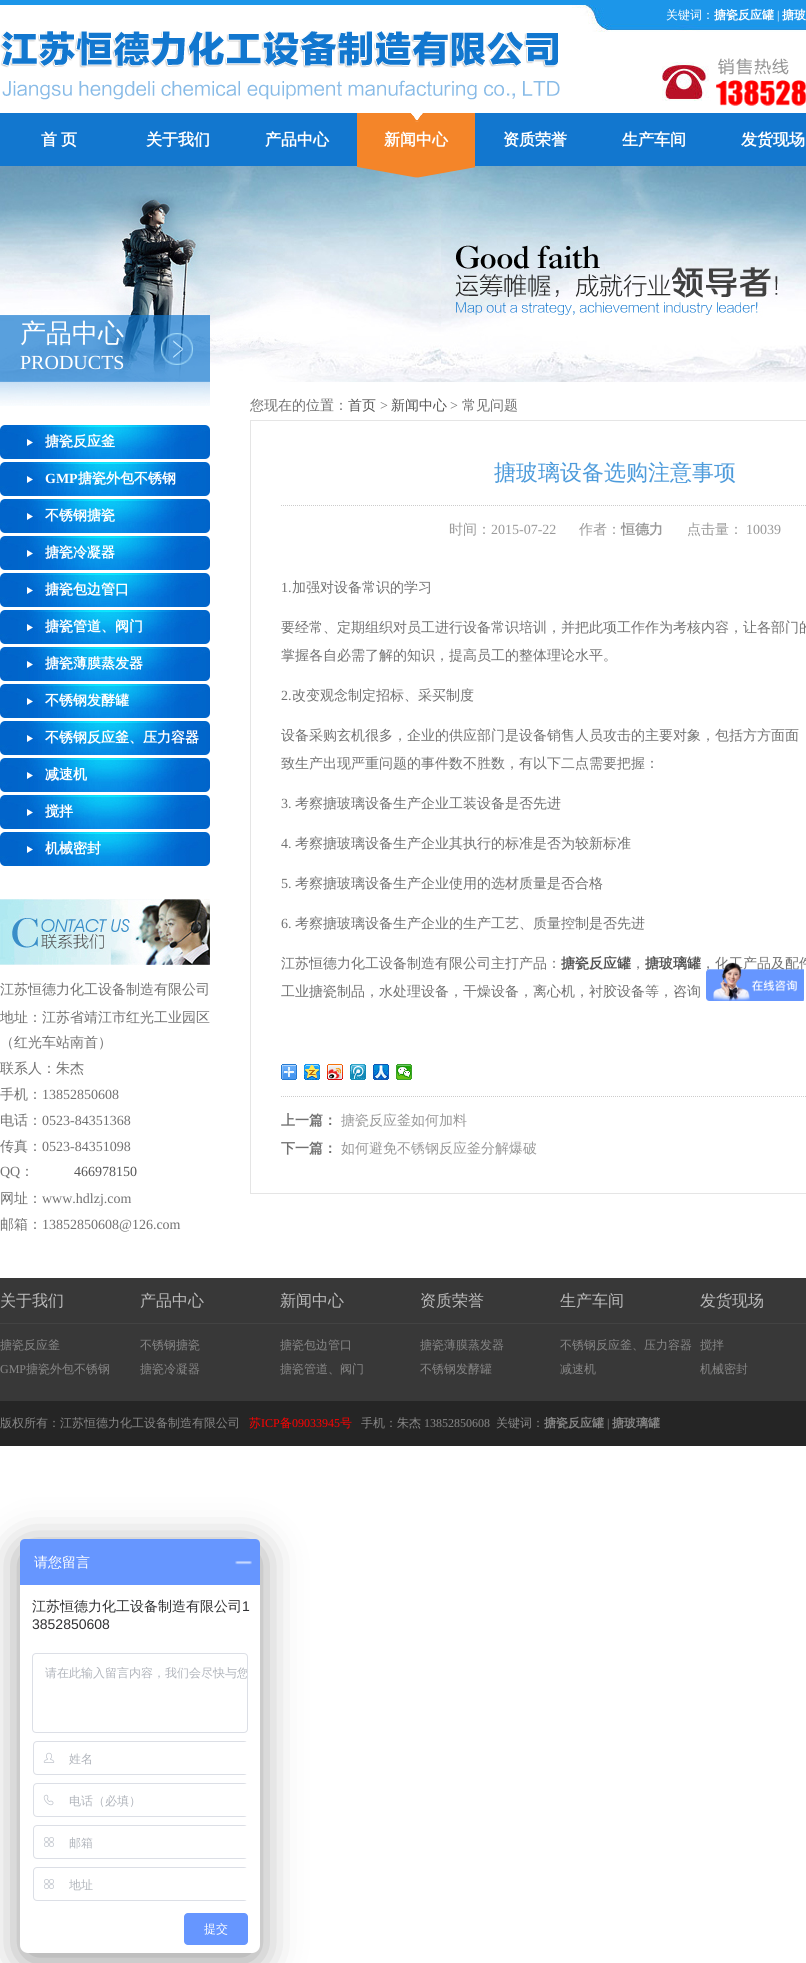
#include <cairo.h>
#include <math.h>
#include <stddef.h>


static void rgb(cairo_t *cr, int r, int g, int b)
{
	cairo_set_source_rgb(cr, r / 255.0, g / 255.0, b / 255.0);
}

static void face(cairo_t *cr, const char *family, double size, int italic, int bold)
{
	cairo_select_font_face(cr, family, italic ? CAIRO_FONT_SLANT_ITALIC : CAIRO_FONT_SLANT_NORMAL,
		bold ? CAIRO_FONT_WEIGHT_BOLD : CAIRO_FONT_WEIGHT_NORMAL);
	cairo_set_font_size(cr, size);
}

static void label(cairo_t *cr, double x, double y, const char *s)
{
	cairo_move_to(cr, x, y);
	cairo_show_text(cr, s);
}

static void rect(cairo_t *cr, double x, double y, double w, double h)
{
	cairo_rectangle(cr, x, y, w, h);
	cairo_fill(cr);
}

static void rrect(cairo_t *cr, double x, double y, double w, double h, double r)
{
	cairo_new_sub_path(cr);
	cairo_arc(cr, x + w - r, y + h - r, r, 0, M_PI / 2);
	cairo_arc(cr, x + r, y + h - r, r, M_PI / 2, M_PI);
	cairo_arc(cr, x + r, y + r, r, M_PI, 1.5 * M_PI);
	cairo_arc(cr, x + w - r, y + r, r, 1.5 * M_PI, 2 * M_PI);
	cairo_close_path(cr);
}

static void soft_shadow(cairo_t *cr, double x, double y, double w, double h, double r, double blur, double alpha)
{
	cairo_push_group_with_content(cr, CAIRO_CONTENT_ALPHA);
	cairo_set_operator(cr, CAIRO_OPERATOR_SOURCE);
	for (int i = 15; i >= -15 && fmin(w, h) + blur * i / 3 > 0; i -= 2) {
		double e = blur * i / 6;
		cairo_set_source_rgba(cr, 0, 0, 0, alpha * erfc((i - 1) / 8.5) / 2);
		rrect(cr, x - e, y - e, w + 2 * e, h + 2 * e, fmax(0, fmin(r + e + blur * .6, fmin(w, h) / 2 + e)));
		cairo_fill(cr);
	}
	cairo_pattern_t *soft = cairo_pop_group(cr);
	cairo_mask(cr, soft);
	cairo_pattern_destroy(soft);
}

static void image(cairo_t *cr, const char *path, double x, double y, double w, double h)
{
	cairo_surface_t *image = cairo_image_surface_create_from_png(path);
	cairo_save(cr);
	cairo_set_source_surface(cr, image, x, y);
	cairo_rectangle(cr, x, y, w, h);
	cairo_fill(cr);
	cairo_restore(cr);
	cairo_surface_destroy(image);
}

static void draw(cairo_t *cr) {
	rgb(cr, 255, 255, 255);
	cairo_paint(cr);
	rgb(cr, 28, 150, 233);
	rect(cr, 0, 0, 806, 5);
	image(cr, "image0.png", 572, 5, 234, 27);
	face(cr, "WenQuanYi Zen Hei Medium", 12, 0, 0);
	rgb(cr, 255, 255, 255);
	label(cr, 666, 19, "关键词：");
	face(cr, "WenQuanYi Zen Hei", 12, 0, 1);
	label(cr, 714, 19, "搪瓷反应罐");
	face(cr, "Liberation Serif", 12, 0, 0);
	label(cr, 777, 19, "|");
	face(cr, "WenQuanYi Zen Hei", 12, 0, 1);
	label(cr, 782, 19, "搪玻");
	image(cr, "image1.png", 662, 58, 144, 48);
	image(cr, "image2.png", 0, 31, 560, 69);
	rgb(cr, 18, 119, 207);
	rect(cr, 0, 113, 806, 53);
	face(cr, "WenQuanYi Zen Hei", 16, 0, 1);
	rgb(cr, 255, 255, 255);
	label(cr, 41, 145, "首");
	label(cr, 61, 145, "页");
	label(cr, 146, 145, "关于我们");
	label(cr, 265, 145, "产品中心");
	image(cr, "image4.png", 0, 166, 806, 216);
	image(cr, "image3.png", 357, 113, 118, 65);
	label(cr, 384, 145, "新闻中心");
	label(cr, 503, 145, "资质荣誉");
	label(cr, 622, 145, "生产车间");
	label(cr, 741, 145, "发货现场");
	image(cr, "image5.png", 0, 382, 210, 24);
	image(cr, "image6.png", 0, 315, 210, 67);
	face(cr, "WenQuanYi Zen Hei Medium", 26, 0, 0);
	label(cr, 20, 342, "产品中心");
	face(cr, "Liberation Serif", 20, 0, 0);
	label(cr, 20, 369, "PRODUCTS");
	image(cr, "image7.png", 0, 425, 210, 34);
	face(cr, "WenQuanYi Zen Hei", 14, 0, 1);
	label(cr, 45, 446, "搪瓷反应釜");
	image(cr, "image7.png", 0, 462, 210, 34);
	face(cr, "Liberation Serif", 14, 0, 1);
	label(cr, 45, 483, "GMP");
	face(cr, "WenQuanYi Zen Hei", 14, 0, 1);
	label(cr, 78, 483, "搪瓷外包不锈钢");
	image(cr, "image7.png", 0, 499, 210, 34);
	label(cr, 45, 520, "不锈钢搪瓷");
	image(cr, "image7.png", 0, 536, 210, 34);
	label(cr, 45, 557, "搪瓷冷凝器");
	image(cr, "image7.png", 0, 573, 210, 34);
	label(cr, 45, 594, "搪瓷包边管口");
	image(cr, "image7.png", 0, 610, 210, 34);
	label(cr, 45, 631, "搪瓷管道、阀门");
	image(cr, "image7.png", 0, 647, 210, 34);
	label(cr, 45, 668, "搪瓷薄膜蒸发器");
	image(cr, "image7.png", 0, 684, 210, 34);
	label(cr, 45, 705, "不锈钢发酵罐");
	image(cr, "image7.png", 0, 721, 210, 34);
	label(cr, 45, 742, "不锈钢反应釜、压力容器");
	image(cr, "image7.png", 0, 758, 210, 34);
	label(cr, 45, 779, "减速机");
	image(cr, "image7.png", 0, 795, 210, 34);
	label(cr, 45, 816, "搅拌");
	image(cr, "image7.png", 0, 832, 210, 34);
	label(cr, 45, 853, "机械密封");
	image(cr, "image8.png", 0, 899, 210, 66);
	face(cr, "WenQuanYi Zen Hei Medium", 14, 0, 0);
	rgb(cr, 113, 113, 113);
	label(cr, 0, 994, "江苏恒德力化工设备制造有限公司");
	label(cr, 0, 1022, "地址：江苏省靖江市红光工业园区");
	label(cr, 0, 1047, "（红光车站南首）");
	label(cr, 0, 1073, "联系人：朱杰");
	label(cr, 0, 1099, "手机：");
	face(cr, "Liberation Serif", 14, 0, 0);
	label(cr, 42, 1099, "13852850608");
	face(cr, "WenQuanYi Zen Hei Medium", 14, 0, 0);
	label(cr, 0, 1125, "电话：");
	face(cr, "Liberation Serif", 14, 0, 0);
	label(cr, 42, 1125, "0523-84351368");
	face(cr, "WenQuanYi Zen Hei Medium", 14, 0, 0);
	label(cr, 0, 1151, "传真：");
	face(cr, "Liberation Serif", 14, 0, 0);
	label(cr, 42, 1151, "0523-84351098");
	label(cr, 0, 1176, "QQ");
	face(cr, "WenQuanYi Zen Hei Medium", 14, 0, 0);
	label(cr, 20, 1176, "：");
	face(cr, "Liberation Serif", 14, 0, 0);
	rgb(cr, 85, 85, 85);
	label(cr, 74, 1176, "466978150");
	face(cr, "WenQuanYi Zen Hei Medium", 14, 0, 0);
	rgb(cr, 113, 113, 113);
	label(cr, 0, 1203, "网址：");
	face(cr, "Liberation Serif", 14, 0, 0);
	label(cr, 42, 1203, "www.hdlzj.com");
	face(cr, "WenQuanYi Zen Hei Medium", 14, 0, 0);
	label(cr, 0, 1229, "邮箱：");
	face(cr, "Liberation Serif", 14, 0, 0);
	label(cr, 42, 1229, "13852850608@126.com");
	face(cr, "WenQuanYi Zen Hei Medium", 14, 0, 0);
	label(cr, 250, 410, "您现在的位置：");
	rgb(cr, 85, 85, 85);
	label(cr, 348, 410, "首页");
	face(cr, "Liberation Serif", 14, 0, 0);
	rgb(cr, 113, 113, 113);
	label(cr, 380, 410, ">");
	face(cr, "WenQuanYi Zen Hei Medium", 14, 0, 0);
	rgb(cr, 85, 85, 85);
	label(cr, 391, 410, "新闻中心");
	face(cr, "Liberation Serif", 14, 0, 0);
	rgb(cr, 113, 113, 113);
	label(cr, 450, 410, ">");
	face(cr, "WenQuanYi Zen Hei Medium", 14, 0, 0);
	label(cr, 462, 410, "常见问题");
	cairo_rectangle(cr, 250.5, 420.5, 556, 773);
	rgb(cr, 229, 229, 229);
	cairo_set_line_width(cr, 1);
	cairo_stroke(cr);
	face(cr, "WenQuanYi Zen Hei Medium", 22, 0, 0);
	rgb(cr, 77, 155, 219);
	label(cr, 494, 480, "搪玻璃设备选购注意事项");
	cairo_new_path(cr);
	cairo_move_to(cr, 281, 505.5);
	cairo_line_to(cr, 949, 505.5);
	rgb(cr, 204, 204, 204);
	cairo_set_dash(cr, (double[]){1, 1}, 2, 0);
	cairo_stroke(cr);
	face(cr, "WenQuanYi Zen Hei Medium", 14, 0, 0);
	rgb(cr, 153, 153, 153);
	label(cr, 449, 534, "时间：");
	face(cr, "Liberation Serif", 14, 0, 0);
	label(cr, 491, 534, "2015-07-22");
	face(cr, "WenQuanYi Zen Hei Medium", 14, 0, 0);
	label(cr, 579, 534, "作者：");
	face(cr, "WenQuanYi Zen Hei", 14, 0, 1);
	label(cr, 621, 534, "恒德力");
	face(cr, "WenQuanYi Zen Hei Medium", 14, 0, 0);
	label(cr, 687, 534, "点击量：");
	face(cr, "Liberation Serif", 14, 0, 0);
	label(cr, 746, 534, "10039");
	rgb(cr, 113, 113, 113);
	label(cr, 281, 592, "1.");
	face(cr, "WenQuanYi Zen Hei Medium", 14, 0, 0);
	label(cr, 292, 592, "加强对设备常识的学习");
	label(cr, 281, 632, "要经常、定期组织对员工进行设备常识培训，并把此项工作作为考核内容，让各部门的");
	label(cr, 281, 660, "掌握各自必需了解的知识，提高员工的整体理论水平。");
	face(cr, "Liberation Serif", 14, 0, 0);
	label(cr, 281, 700, "2.");
	face(cr, "WenQuanYi Zen Hei Medium", 14, 0, 0);
	label(cr, 292, 700, "改变观念制定招标、采买制度");
	label(cr, 281, 740, "设备采购玄机很多，企业的供应部门是设备销售人员攻击的主要对象，包括方方面面");
	label(cr, 281, 768, "致生产出现严重问题的事件数不胜数，有以下二点需要把握：");
	face(cr, "Liberation Serif", 14, 0, 0);
	label(cr, 281, 808, "3.");
	face(cr, "WenQuanYi Zen Hei Medium", 14, 0, 0);
	label(cr, 295, 808, "考察搪玻璃设备生产企业工装设备是否先进");
	face(cr, "Liberation Serif", 14, 0, 0);
	label(cr, 281, 848, "4.");
	face(cr, "WenQuanYi Zen Hei Medium", 14, 0, 0);
	label(cr, 295, 848, "考察搪玻璃设备生产企业其执行的标准是否为较新标准");
	face(cr, "Liberation Serif", 14, 0, 0);
	label(cr, 281, 888, "5.");
	face(cr, "WenQuanYi Zen Hei Medium", 14, 0, 0);
	label(cr, 295, 888, "考察搪玻璃设备生产企业使用的选材质量是否合格");
	face(cr, "Liberation Serif", 14, 0, 0);
	label(cr, 281, 928, "6.");
	face(cr, "WenQuanYi Zen Hei Medium", 14, 0, 0);
	label(cr, 295, 928, "考察搪玻璃设备生产企业的生产工艺、质量控制是否先进");
	label(cr, 281, 968, "江苏恒德力化工设备制造有限公司主打产品：");
	face(cr, "WenQuanYi Zen Hei", 14, 0, 1);
	rgb(cr, 85, 85, 85);
	label(cr, 561, 968, "搪瓷反应罐");
	face(cr, "WenQuanYi Zen Hei Medium", 14, 0, 0);
	rgb(cr, 113, 113, 113);
	label(cr, 631, 968, "，");
	face(cr, "WenQuanYi Zen Hei", 14, 0, 1);
	rgb(cr, 85, 85, 85);
	label(cr, 645, 968, "搪玻璃罐");
	face(cr, "WenQuanYi Zen Hei Medium", 14, 0, 0);
	rgb(cr, 113, 113, 113);
	label(cr, 701, 968, "，化工产品及配件");
	label(cr, 281, 996, "工业搪瓷制品，水处理设备，干燥设备，离心机，衬胶设备等，咨询");
	image(cr, "image9.png", 281, 1064, 16, 16);
	image(cr, "image10.png", 304, 1064, 16, 16);
	image(cr, "image11.png", 327, 1064, 16, 16);
	image(cr, "image12.png", 350, 1064, 16, 16);
	image(cr, "image13.png", 373, 1064, 16, 16);
	image(cr, "image14.png", 396, 1064, 16, 16);
	cairo_new_path(cr);
	cairo_move_to(cr, 281, 1096.5);
	cairo_line_to(cr, 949, 1096.5);
	rgb(cr, 204, 204, 204);
	cairo_stroke(cr);
	face(cr, "WenQuanYi Zen Hei", 14, 0, 1);
	rgb(cr, 113, 113, 113);
	label(cr, 281, 1125, "上一篇：");
	face(cr, "WenQuanYi Zen Hei Medium", 14, 0, 0);
	rgb(cr, 153, 153, 153);
	label(cr, 341, 1125, "搪瓷反应釜如何加料");
	face(cr, "WenQuanYi Zen Hei", 14, 0, 1);
	rgb(cr, 113, 113, 113);
	label(cr, 281, 1153, "下一篇：");
	face(cr, "WenQuanYi Zen Hei Medium", 14, 0, 0);
	rgb(cr, 153, 153, 153);
	label(cr, 341, 1153, "如何避免不锈钢反应釜分解爆破");
	rgb(cr, 56, 56, 56);
	rect(cr, 0, 1278, 806, 123);
	rgb(cr, 67, 67, 67);
	rect(cr, 0, 1323, 806, 1);
	face(cr, "WenQuanYi Zen Hei Medium", 16, 0, 0);
	rgb(cr, 187, 187, 187);
	label(cr, 0, 1306, "关于我们");
	face(cr, "WenQuanYi Zen Hei Medium", 12, 0, 0);
	rgb(cr, 135, 135, 135);
	label(cr, 0, 1349, "搪瓷反应釜");
	face(cr, "Liberation Serif", 12, 0, 0);
	label(cr, 0, 1373, "GMP");
	face(cr, "WenQuanYi Zen Hei Medium", 12, 0, 0);
	label(cr, 26, 1373, "搪瓷外包不锈钢");
	face(cr, "WenQuanYi Zen Hei Medium", 16, 0, 0);
	rgb(cr, 187, 187, 187);
	label(cr, 140, 1306, "产品中心");
	face(cr, "WenQuanYi Zen Hei Medium", 12, 0, 0);
	rgb(cr, 135, 135, 135);
	label(cr, 140, 1349, "不锈钢搪瓷");
	label(cr, 140, 1373, "搪瓷冷凝器");
	face(cr, "WenQuanYi Zen Hei Medium", 16, 0, 0);
	rgb(cr, 187, 187, 187);
	label(cr, 280, 1306, "新闻中心");
	face(cr, "WenQuanYi Zen Hei Medium", 12, 0, 0);
	rgb(cr, 135, 135, 135);
	label(cr, 280, 1349, "搪瓷包边管口");
	label(cr, 280, 1373, "搪瓷管道、阀门");
	face(cr, "WenQuanYi Zen Hei Medium", 16, 0, 0);
	rgb(cr, 187, 187, 187);
	label(cr, 420, 1306, "资质荣誉");
	face(cr, "WenQuanYi Zen Hei Medium", 12, 0, 0);
	rgb(cr, 135, 135, 135);
	label(cr, 420, 1349, "搪瓷薄膜蒸发器");
	label(cr, 420, 1373, "不锈钢发酵罐");
	face(cr, "WenQuanYi Zen Hei Medium", 16, 0, 0);
	rgb(cr, 187, 187, 187);
	label(cr, 560, 1306, "生产车间");
	face(cr, "WenQuanYi Zen Hei Medium", 12, 0, 0);
	rgb(cr, 135, 135, 135);
	label(cr, 560, 1349, "不锈钢反应釜、压力容器");
	label(cr, 560, 1373, "减速机");
	face(cr, "WenQuanYi Zen Hei Medium", 16, 0, 0);
	rgb(cr, 187, 187, 187);
	label(cr, 700, 1306, "发货现场");
	face(cr, "WenQuanYi Zen Hei Medium", 12, 0, 0);
	rgb(cr, 135, 135, 135);
	label(cr, 700, 1349, "搅拌");
	label(cr, 700, 1373, "机械密封");
	rgb(cr, 37, 37, 37);
	rect(cr, 0, 1401, 806, 45);
	rgb(cr, 135, 135, 135);
	label(cr, 0, 1427, "版权所有：江苏恒德力化工设备制造有限公司");
	rgb(cr, 255, 0, 0);
	label(cr, 249, 1427, "苏");
	face(cr, "Liberation Serif", 12, 0, 0);
	label(cr, 261, 1427, "ICP");
	face(cr, "WenQuanYi Zen Hei Medium", 12, 0, 0);
	label(cr, 280, 1427, "备");
	face(cr, "Liberation Serif", 12, 0, 0);
	label(cr, 292, 1427, "09033945");
	face(cr, "WenQuanYi Zen Hei Medium", 12, 0, 0);
	label(cr, 340, 1427, "号");
	rgb(cr, 135, 135, 135);
	label(cr, 361, 1427, "手机：朱杰");
	face(cr, "Liberation Serif", 12, 0, 0);
	label(cr, 424, 1427, "13852850608");
	face(cr, "WenQuanYi Zen Hei Medium", 12, 0, 0);
	label(cr, 496, 1427, "关键词：");
	face(cr, "WenQuanYi Zen Hei", 12, 0, 1);
	label(cr, 544, 1427, "搪瓷反应罐");
	face(cr, "Liberation Serif", 12, 0, 0);
	label(cr, 607, 1427, "|");
	face(cr, "WenQuanYi Zen Hei", 12, 0, 1);
	label(cr, 612, 1427, "搪玻璃罐");
	image(cr, "image15.png", 706, 962, 98, 39);
	rgb(cr, 0, 0, 0);
	soft_shadow(cr, 20, 1547, 240, 414, 8, 20, 0.4);
	rgb(cr, 255, 255, 255);
	rrect(cr, 20, 1539, 240, 414, 8);
	cairo_fill(cr);
	rgb(cr, 102, 150, 255);
	cairo_new_path(cr);
	cairo_move_to(cr, 25, 1539);
	cairo_line_to(cr, 255, 1539);
	cairo_curve_to(cr, 258, 1539, 260, 1541, 260, 1544);
	cairo_line_to(cr, 260, 1585);
	cairo_line_to(cr, 20, 1585);
	cairo_line_to(cr, 20, 1544);
	cairo_curve_to(cr, 20, 1541, 22, 1539, 25, 1539);
	cairo_close_path(cr);
	cairo_fill(cr);
	face(cr, "WenQuanYi Zen Hei Medium", 14, 0, 0);
	rgb(cr, 255, 255, 255);
	label(cr, 34, 1567, "请您留言");
	image(cr, "image16.png", 235, 1561, 17, 4);
	rgb(cr, 48, 49, 51);
	label(cr, 32, 1611, "江苏恒德力化工设备制造有限公司");
	face(cr, "Liberation Sans", 14, 0, 0);
	label(cr, 242, 1611, "1");
	label(cr, 32, 1629, "3852850608");
	rrect(cr, 32.5, 1653.5, 215, 79, 3.5);
	rgb(cr, 220, 223, 230);
	cairo_set_dash(cr, NULL, 0, 0);
	cairo_stroke(cr);
	cairo_save(cr);
	rrect(cr, 33, 1654, 214, 78, 3);
	cairo_clip(cr);
	face(cr, "WenQuanYi Zen Hei Medium", 12, 0, 0);
	rgb(cr, 176, 180, 187);
	label(cr, 45, 1677, "请在此输入留言内容，我们会尽快与您");
	cairo_restore(cr);
	rrect(cr, 33.5, 1741.5, 214, 33, 3.5);
	cairo_stroke(cr);
	image(cr, "image17.png", 43, 1752, 12, 11);
	rgb(cr, 255, 255, 255);
	rect(cr, 244, 1742, 4, 32);
	face(cr, "WenQuanYi Zen Hei Medium", 12, 0, 0);
	rgb(cr, 176, 180, 187);
	label(cr, 69, 1763, "姓名");
	rrect(cr, 33.5, 1783.5, 214, 33, 3.5);
	rgb(cr, 220, 223, 230);
	cairo_stroke(cr);
	image(cr, "image18.png", 43, 1794, 11, 12);
	rgb(cr, 255, 255, 255);
	rect(cr, 244, 1784, 4, 32);
	rgb(cr, 176, 180, 187);
	label(cr, 69, 1805, "电话（必填）");
	rrect(cr, 33.5, 1825.5, 214, 33, 3.5);
	rgb(cr, 220, 223, 230);
	cairo_stroke(cr);
	image(cr, "image19.png", 44, 1837, 10, 10);
	rgb(cr, 255, 255, 255);
	rect(cr, 244, 1826, 4, 32);
	rgb(cr, 176, 180, 187);
	label(cr, 69, 1847, "邮箱");
	rrect(cr, 33.5, 1867.5, 214, 33, 3.5);
	rgb(cr, 220, 223, 230);
	cairo_stroke(cr);
	image(cr, "image19.png", 44, 1879, 10, 10);
	rgb(cr, 255, 255, 255);
	rect(cr, 244, 1868, 4, 32);
	cairo_save(cr);
	cairo_rectangle(cr, 69, 1877, 181, 17);
	cairo_clip(cr);
	rgb(cr, 176, 180, 187);
	label(cr, 69, 1889, "地址");
	cairo_restore(cr);
	rgb(cr, 102, 150, 255);
	rrect(cr, 184, 1913, 64, 32, 4);
	cairo_fill(cr);
	rgb(cr, 255, 255, 255);
	label(cr, 204, 1933, "提交");
}

int main(void) {
	cairo_surface_t *surface = cairo_image_surface_create(CAIRO_FORMAT_RGB24, 806, 1963);
	cairo_t *cr = cairo_create(surface);
	cairo_font_options_t *options = cairo_font_options_create();
	cairo_font_options_set_hint_metrics(options, CAIRO_HINT_METRICS_OFF);
	cairo_font_options_set_hint_style(options, CAIRO_HINT_STYLE_NONE);
	cairo_set_font_options(cr, options);
	cairo_set_miter_limit(cr, 4);
	draw(cr);
	cairo_surface_write_to_png(surface, "render.png");
	cairo_font_options_destroy(options);
	cairo_destroy(cr);
	cairo_surface_destroy(surface);
	return 0;
}
